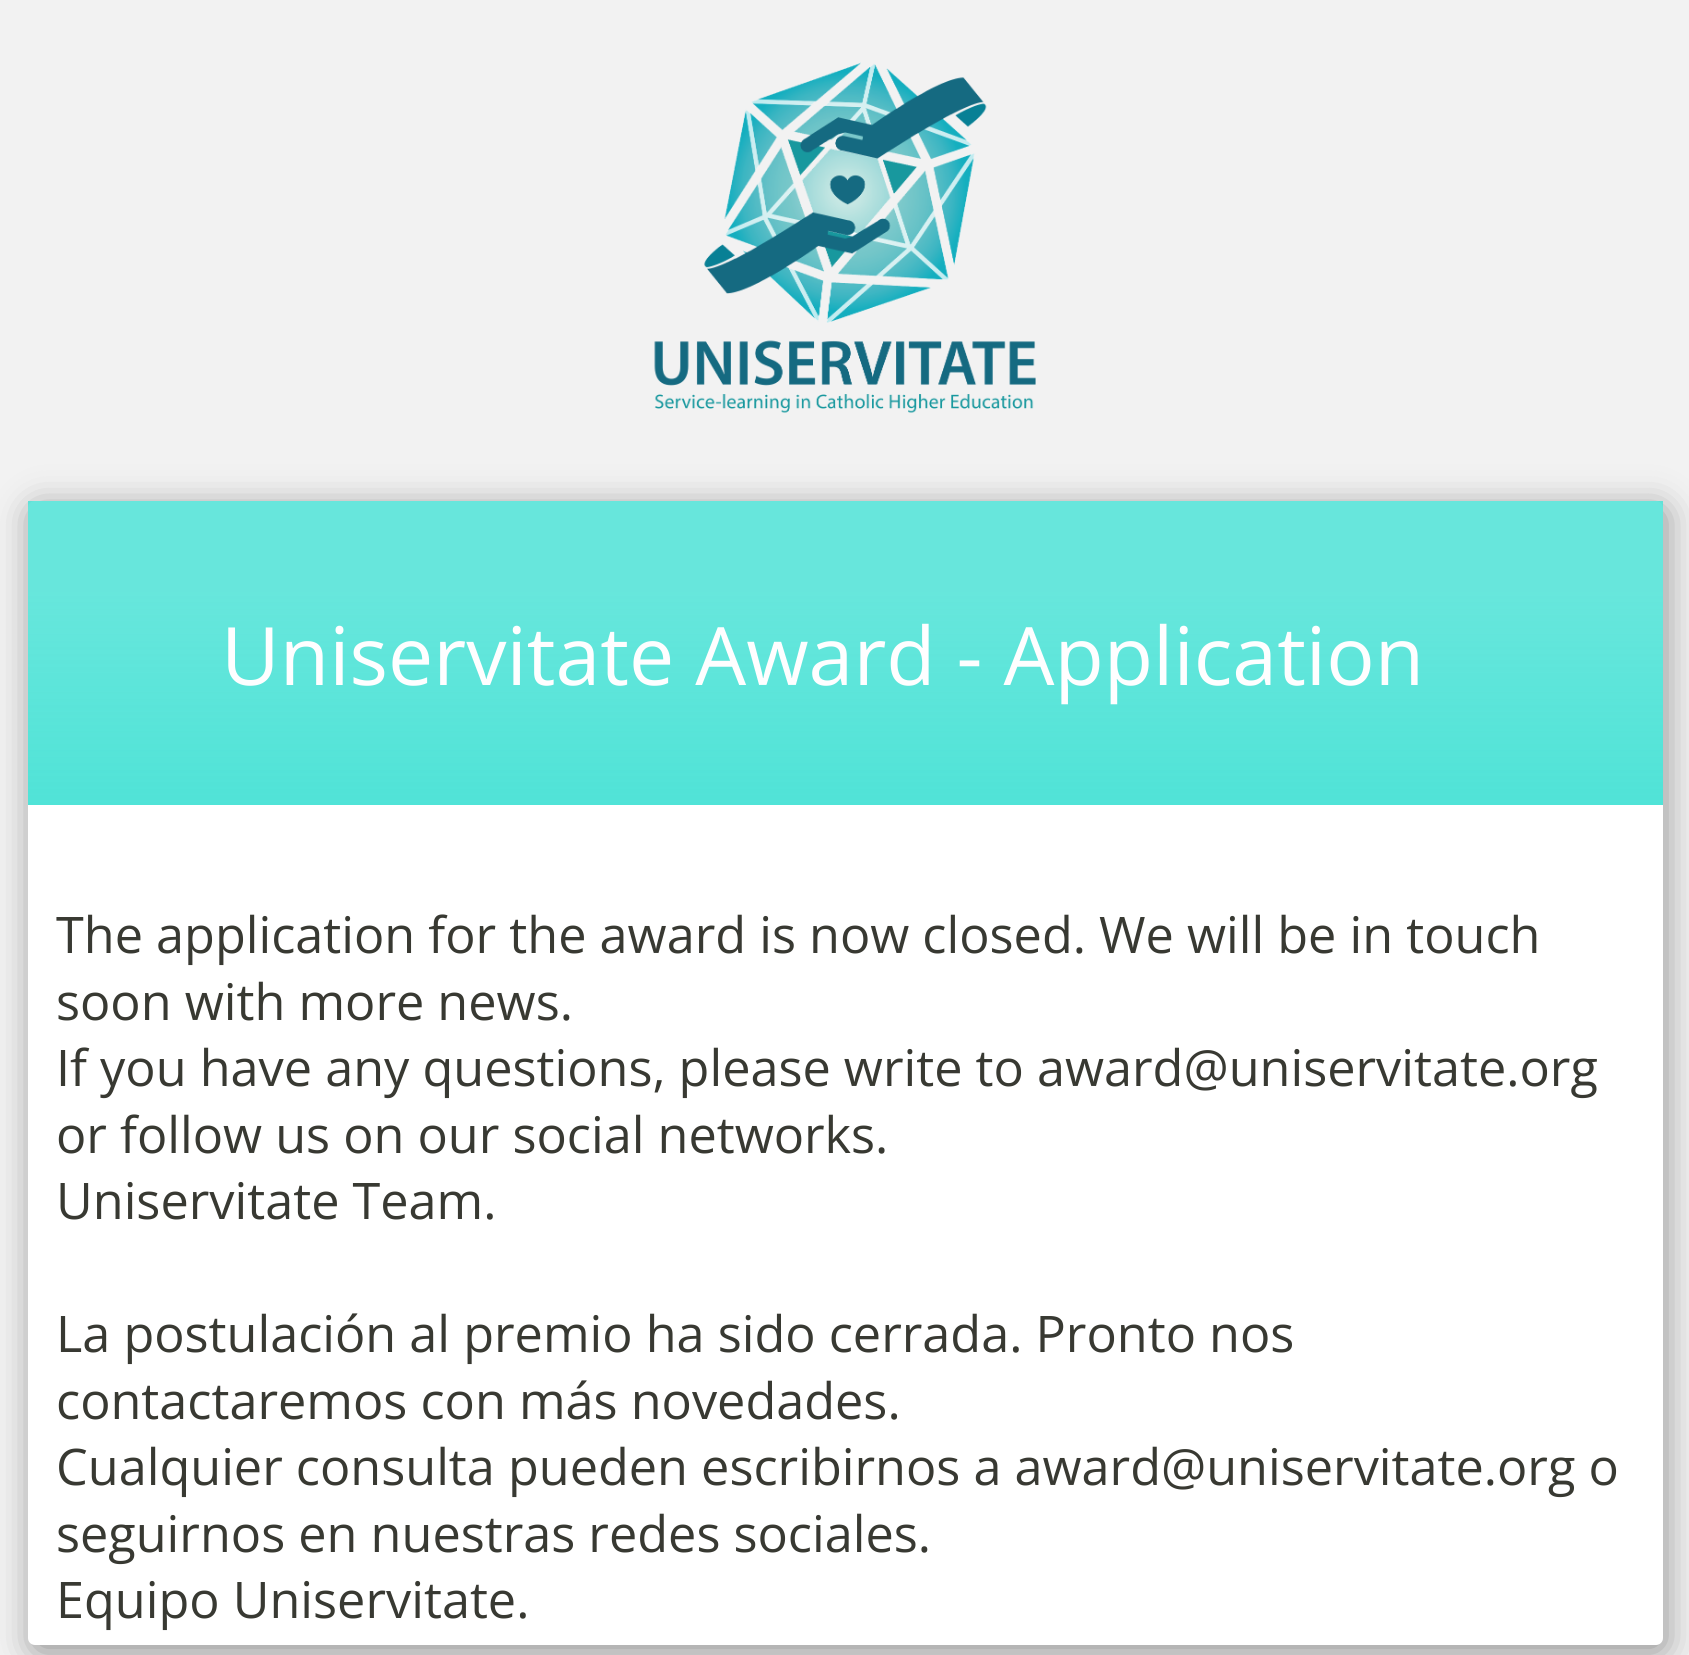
#include <cairo.h>
#include <math.h>
#include <stddef.h>


static void rgb(cairo_t *cr, int r, int g, int b)
{
	cairo_set_source_rgb(cr, r / 255.0, g / 255.0, b / 255.0);
}

static void face(cairo_t *cr, const char *family, double size, int italic, int bold)
{
	cairo_select_font_face(cr, family, italic ? CAIRO_FONT_SLANT_ITALIC : CAIRO_FONT_SLANT_NORMAL,
		bold ? CAIRO_FONT_WEIGHT_BOLD : CAIRO_FONT_WEIGHT_NORMAL);
	cairo_set_font_size(cr, size);
}

static void label(cairo_t *cr, double x, double y, const char *s)
{
	cairo_move_to(cr, x, y);
	cairo_show_text(cr, s);
}

static void rect(cairo_t *cr, double x, double y, double w, double h)
{
	cairo_rectangle(cr, x, y, w, h);
	cairo_fill(cr);
}

static void rrect(cairo_t *cr, double x, double y, double w, double h, double r)
{
	cairo_new_sub_path(cr);
	cairo_arc(cr, x + w - r, y + h - r, r, 0, M_PI / 2);
	cairo_arc(cr, x + r, y + h - r, r, M_PI / 2, M_PI);
	cairo_arc(cr, x + r, y + r, r, M_PI, 1.5 * M_PI);
	cairo_arc(cr, x + w - r, y + r, r, 1.5 * M_PI, 2 * M_PI);
	cairo_close_path(cr);
}

static void soft_shadow(cairo_t *cr, double x, double y, double w, double h, double r, double blur, double alpha)
{
	cairo_push_group_with_content(cr, CAIRO_CONTENT_ALPHA);
	cairo_set_operator(cr, CAIRO_OPERATOR_SOURCE);
	for (int i = 15; i >= -15 && fmin(w, h) + blur * i / 3 > 0; i -= 2) {
		double e = blur * i / 6;
		cairo_set_source_rgba(cr, 0, 0, 0, alpha * erfc((i - 1) / 8.5) / 2);
		rrect(cr, x - e, y - e, w + 2 * e, h + 2 * e, fmax(0, fmin(r + e + blur * .6, fmin(w, h) / 2 + e)));
		cairo_fill(cr);
	}
	cairo_pattern_t *soft = cairo_pop_group(cr);
	cairo_mask(cr, soft);
	cairo_pattern_destroy(soft);
}

static void image(cairo_t *cr, const char *path, double x, double y, double w, double h)
{
	cairo_surface_t *image = cairo_image_surface_create_from_png(path);
	cairo_save(cr);
	cairo_set_source_surface(cr, image, x, y);
	cairo_rectangle(cr, x, y, w, h);
	cairo_fill(cr);
	cairo_restore(cr);
	cairo_surface_destroy(image);
}

static void draw(cairo_t *cr) {
	cairo_pattern_t *gradient;
	rgb(cr, 242, 242, 242);
	cairo_paint(cr);
	image(cr, "image0.png", 654, 62, 382, 351);
	rgb(cr, 0, 0, 0);
	soft_shadow(cr, 32, 508, 1634, 1144, 7, 17.5, 0.4);
	rgb(cr, 255, 255, 255);
	rrect(cr, 28, 501, 1635, 1144, 7);
	cairo_fill(cr);
	gradient = cairo_pattern_create_linear(845, 500, 845, 805);
	cairo_pattern_add_color_stop_rgba(gradient, 0.3, 0.314, 0.89, 0.843, 0.87);
	cairo_pattern_add_color_stop_rgba(gradient, 1, 0.314, 0.89, 0.843, 1);
	cairo_set_source(cr, gradient);
	cairo_pattern_destroy(gradient);
	rect(cr, 28, 501, 1635, 304);
	face(cr, "Open Sans", 80.6, 0, 0);
	rgb(cr, 254, 254, 255);
	label(cr, 221, 685, "Uniservitate Award - Application");
	face(cr, "Open Sans", 50.4, 0, 0);
	rgb(cr, 56, 57, 50);
	label(cr, 56, 953, "The application for the award is now closed. We will be in touch");
	label(cr, 56, 1020, "soon with more news.");
	label(cr, 56, 1086, "If you have any questions, please write to award@uniservitate.org");
	label(cr, 56, 1153, "or follow us on our social networks.");
	label(cr, 56, 1219, "Uniservitate Team.");
	label(cr, 56, 1352, "La postulación al premio ha sido cerrada. Pronto nos");
	label(cr, 56, 1419, "contactaremos con más novedades.");
	label(cr, 56, 1485, "Cualquier consulta pueden escribirnos a award@uniservitate.org o");
	label(cr, 56, 1552, "seguirnos en nuestras redes sociales.");
	label(cr, 56, 1618, "Equipo Uniservitate.");
}

int main(void) {
	cairo_surface_t *surface = cairo_image_surface_create(CAIRO_FORMAT_RGB24, 1689, 1655);
	cairo_t *cr = cairo_create(surface);
	cairo_font_options_t *options = cairo_font_options_create();
	cairo_font_options_set_hint_metrics(options, CAIRO_HINT_METRICS_OFF);
	cairo_font_options_set_hint_style(options, CAIRO_HINT_STYLE_NONE);
	cairo_set_font_options(cr, options);
	cairo_set_miter_limit(cr, 4);
	draw(cr);
	cairo_surface_write_to_png(surface, "render.png");
	cairo_font_options_destroy(options);
	cairo_destroy(cr);
	cairo_surface_destroy(surface);
	return 0;
}
